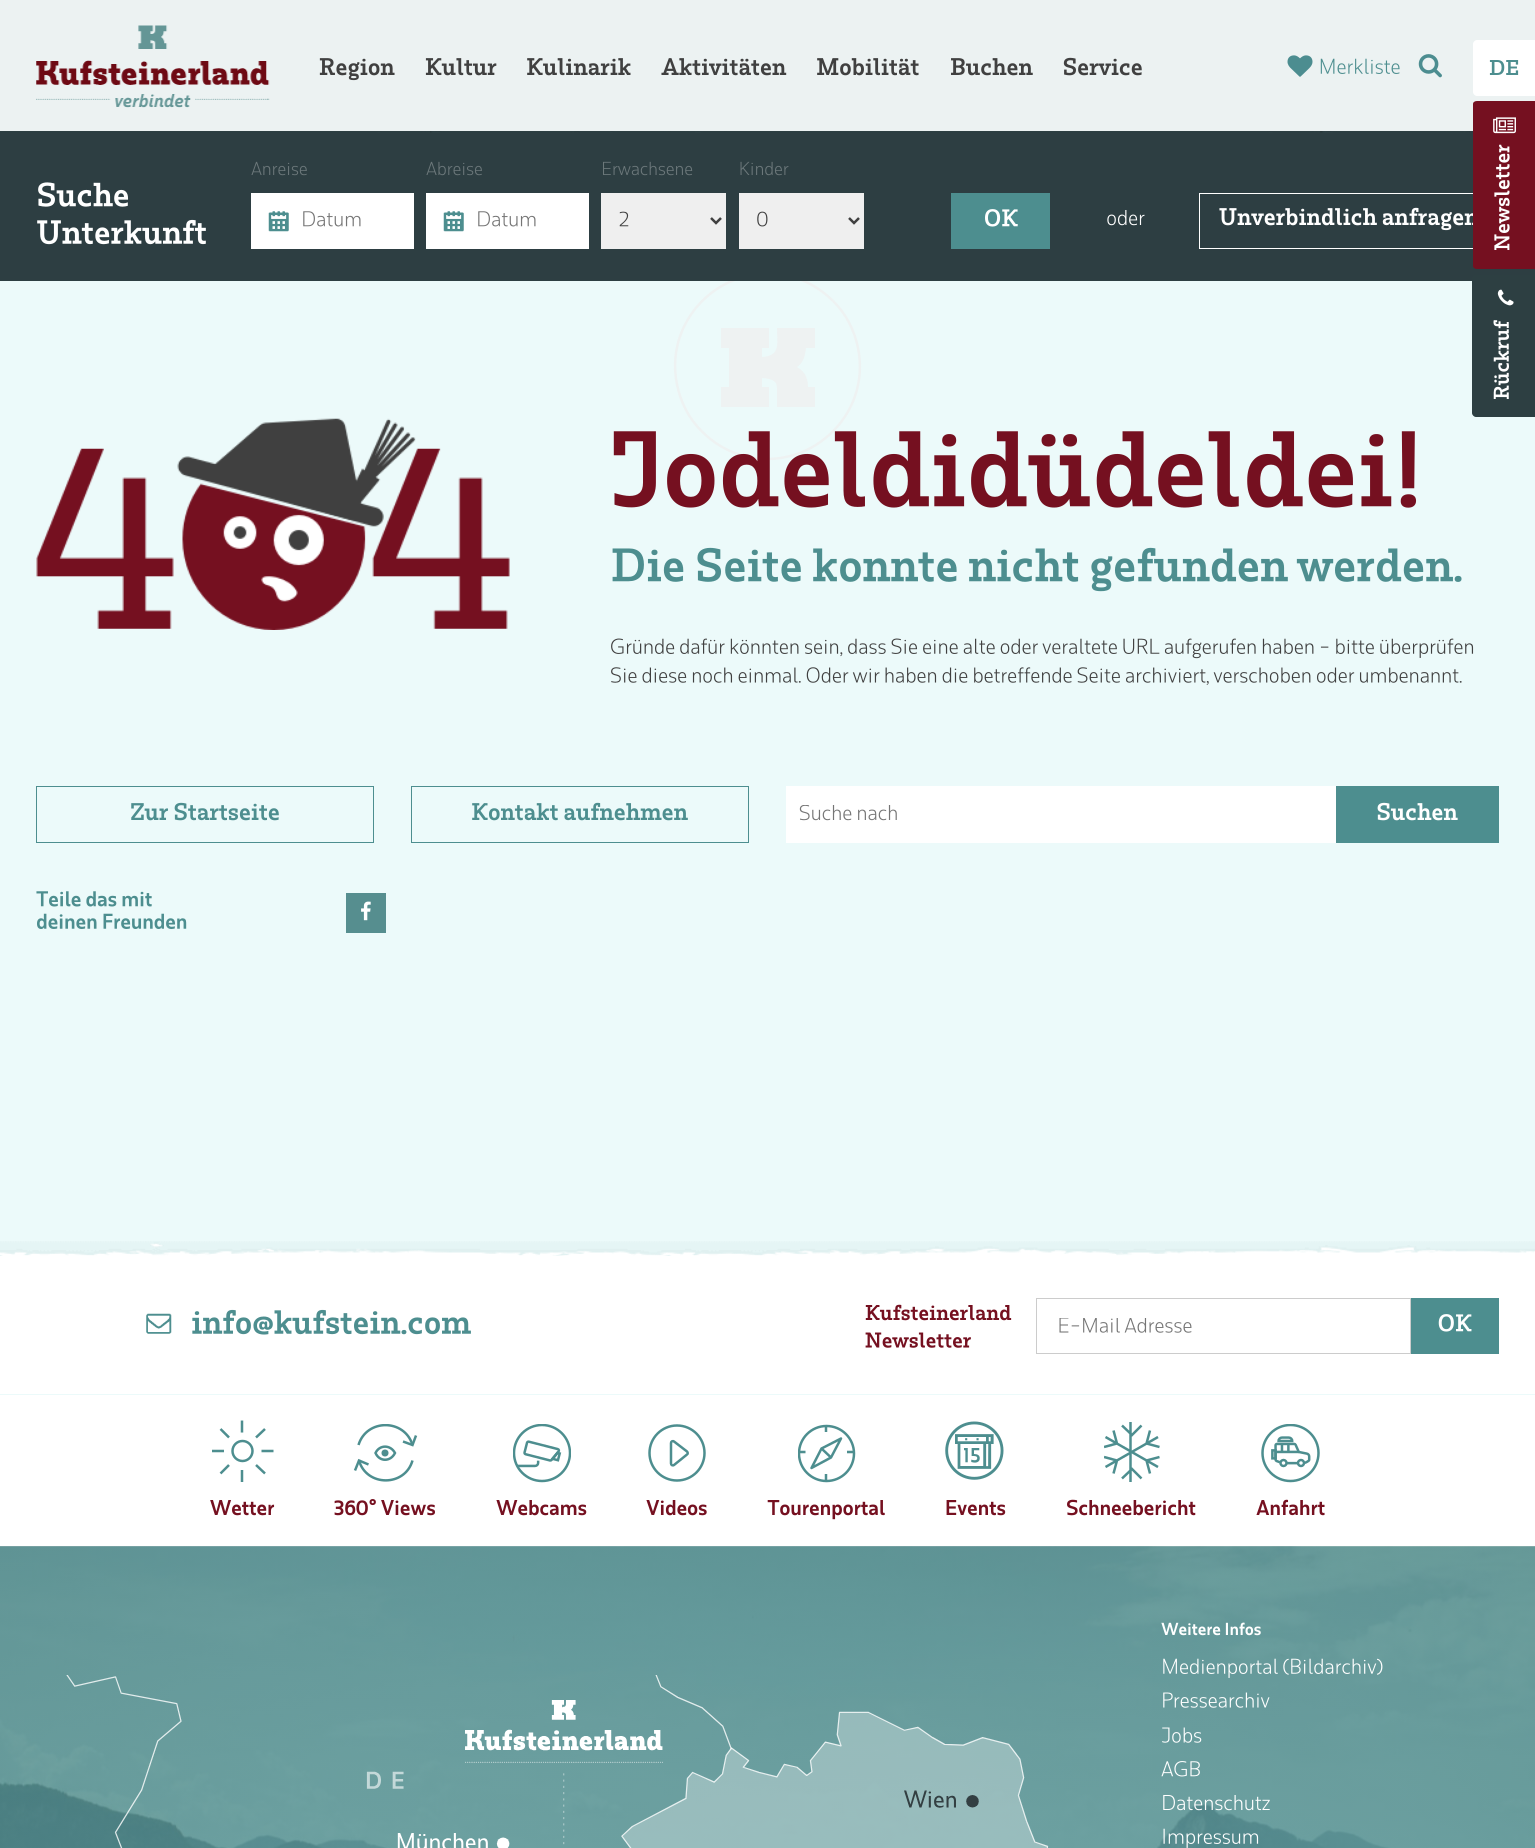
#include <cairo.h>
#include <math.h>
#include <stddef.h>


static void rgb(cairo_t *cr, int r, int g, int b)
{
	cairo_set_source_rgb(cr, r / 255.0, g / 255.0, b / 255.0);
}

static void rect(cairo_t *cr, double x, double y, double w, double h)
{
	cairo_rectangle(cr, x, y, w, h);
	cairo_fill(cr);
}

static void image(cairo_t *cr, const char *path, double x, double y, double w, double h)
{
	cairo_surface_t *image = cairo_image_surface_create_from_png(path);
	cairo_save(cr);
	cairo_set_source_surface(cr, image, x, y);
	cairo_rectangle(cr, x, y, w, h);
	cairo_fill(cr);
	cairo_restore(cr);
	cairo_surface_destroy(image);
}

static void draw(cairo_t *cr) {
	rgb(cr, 236, 250, 250);
	cairo_paint(cr);
	rgb(cr, 236, 242, 242);
	rect(cr, 0, 0, 1535, 131);
	image(cr, "image0.png", 36, 25, 234, 83);
	image(cr, "image1.png", 319, 58, 76, 23);
	image(cr, "image2.png", 425, 58, 72, 18);
	image(cr, "image3.png", 527, 58, 104, 18);
	image(cr, "image4.png", 661, 58, 126, 18);
	image(cr, "image5.png", 817, 58, 102, 18);
	image(cr, "image6.png", 951, 58, 82, 18);
	image(cr, "image7.png", 1063, 57, 79, 19);
	image(cr, "image8.png", 1287, 55, 26, 22);
	image(cr, "image9.png", 1320, 58, 80, 16);
	image(cr, "image10.png", 1418, 54, 24, 24);
	rgb(cr, 255, 255, 255);
	cairo_new_path(cr);
	cairo_move_to(cr, 1477, 40);
	cairo_line_to(cr, 1535, 40);
	cairo_line_to(cr, 1535, 96);
	cairo_line_to(cr, 1477, 96);
	cairo_curve_to(cr, 1475, 96, 1473, 94, 1473, 92);
	cairo_line_to(cr, 1473, 44);
	cairo_curve_to(cr, 1473, 42, 1475, 40, 1477, 40);
	cairo_close_path(cr);
	cairo_fill(cr);
	image(cr, "image11.png", 1489, 60, 30, 15);
	rgb(cr, 238, 242, 242);
	cairo_new_path(cr);
	cairo_move_to(cr, 806, 348);
	cairo_line_to(cr, 815, 348);
	cairo_line_to(cr, 815, 328);
	cairo_line_to(cr, 777, 328);
	cairo_curve_to(cr, 777, 343, 781, 356, 762, 357);
	cairo_line_to(cr, 762, 348);
	cairo_line_to(cr, 769, 348);
	cairo_line_to(cr, 769, 328);
	cairo_line_to(cr, 721, 328);
	cairo_line_to(cr, 721, 348);
	cairo_line_to(cr, 729, 348);
	cairo_line_to(cr, 729, 387);
	cairo_line_to(cr, 721, 387);
	cairo_line_to(cr, 721, 407);
	cairo_line_to(cr, 769, 407);
	cairo_line_to(cr, 769, 387);
	cairo_line_to(cr, 762, 387);
	cairo_line_to(cr, 762, 378);
	cairo_curve_to(cr, 778, 379, 777, 385, 777, 392);
	cairo_line_to(cr, 777, 407);
	cairo_line_to(cr, 815, 407);
	cairo_line_to(cr, 815, 387);
	cairo_line_to(cr, 808, 387);
	cairo_curve_to(cr, 808, 377, 804, 371, 797, 367);
	cairo_curve_to(cr, 803, 363, 805, 357, 806, 348);
	cairo_fill(cr);
	cairo_new_path(cr);
	cairo_move_to(cr, 833, 301);
	cairo_curve_to(cr, 846, 313.5, 854.5, 330.5, 858, 348);
	cairo_curve_to(cr, 872, 416.5, 807, 475, 740.5, 455);
	cairo_curve_to(cr, 726, 450.5, 713, 442.5, 702, 431.5);
	cairo_set_line_width(cr, 2.5);
	cairo_stroke(cr);
	cairo_new_path(cr);
	cairo_move_to(cr, 702, 431.5);
	cairo_curve_to(cr, 689, 419, 680.5, 402, 677, 384.5);
	cairo_curve_to(cr, 663, 316, 728, 257.5, 794.5, 277.5);
	cairo_curve_to(cr, 809, 282, 822, 290, 833, 301);
	cairo_stroke(cr);
	rgb(cr, 45, 62, 66);
	rect(cr, 0, 131, 1535, 150);
	cairo_rectangle(cr, 1199.5, 193.5, 299, 55);
	rgb(cr, 255, 255, 255);
	cairo_set_line_width(cr, 1);
	cairo_stroke(cr);
	rgb(cr, 117, 16, 32);
	cairo_new_path(cr);
	cairo_move_to(cr, 1473, 266);
	cairo_line_to(cr, 1473, 104);
	cairo_curve_to(cr, 1473, 102, 1475, 101, 1477, 101);
	cairo_line_to(cr, 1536, 101);
	cairo_line_to(cr, 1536, 269);
	cairo_line_to(cr, 1477, 269);
	cairo_curve_to(cr, 1475, 269, 1473, 268, 1473, 266);
	cairo_close_path(cr);
	cairo_fill(cr);
	image(cr, "image12.png", 1493, 117, 23, 17);
	image(cr, "image13.png", 1494, 144, 16, 106);
	rgb(cr, 45, 63, 66);
	cairo_new_path(cr);
	cairo_move_to(cr, 1472, 413);
	cairo_line_to(cr, 1472, 279);
	cairo_curve_to(cr, 1472, 277, 1474, 275, 1476, 275);
	cairo_line_to(cr, 1535, 275);
	cairo_line_to(cr, 1535, 417);
	cairo_line_to(cr, 1476, 417);
	cairo_curve_to(cr, 1474, 417, 1472, 415, 1472, 413);
	cairo_close_path(cr);
	cairo_fill(cr);
	image(cr, "image14.png", 1497, 289, 17, 17);
	image(cr, "image15.png", 1493, 320, 16, 79);
	image(cr, "image16.png", 0, 131, 1473, 2);
	image(cr, "image17.png", 38, 182, 91, 25);
	image(cr, "image18.png", 37, 219, 169, 26);
	image(cr, "image19.png", 251, 161, 56, 15);
	rgb(cr, 255, 255, 255);
	rect(cr, 251, 193, 163, 56);
	image(cr, "image20.png", 268, 211, 21, 21);
	image(cr, "image21.png", 303, 211, 58, 16);
	image(cr, "image22.png", 426, 161, 56, 15);
	rect(cr, 426, 193, 163, 56);
	image(cr, "image20.png", 443, 211, 21, 21);
	image(cr, "image21.png", 478, 211, 58, 16);
	image(cr, "image23.png", 603, 161, 90, 15);
	rgb(cr, 239, 239, 239);
	rect(cr, 601, 193, 125, 56);
	cairo_new_path(cr);
	cairo_move_to(cr, 711, 218);
	cairo_line_to(cr, 716, 223);
	cairo_line_to(cr, 721, 218);
	rgb(cr, 64, 64, 64);
	cairo_set_line_width(cr, 2.5);
	cairo_stroke(cr);
	image(cr, "image24.png", 619, 211, 10, 16);
	image(cr, "image25.png", 740, 161, 49, 15);
	rgb(cr, 239, 239, 239);
	rect(cr, 739, 193, 125, 56);
	cairo_new_path(cr);
	cairo_move_to(cr, 849, 218);
	cairo_line_to(cr, 854, 223);
	cairo_line_to(cr, 859, 218);
	rgb(cr, 64, 64, 64);
	cairo_stroke(cr);
	image(cr, "image26.png", 757, 211, 11, 16);
	rgb(cr, 77, 142, 143);
	rect(cr, 951, 193, 99, 56);
	image(cr, "image27.png", 985, 209, 33, 18);
	image(cr, "image28.png", 1107, 210, 38, 16);
	image(cr, "image29.png", 1219, 207, 254, 24);
	image(cr, "image30.png", 36, 418, 474, 212);
	image(cr, "image31.png", 613, 431, 804, 77);
	image(cr, "image32.png", 612, 547, 850, 45);
	image(cr, "image33.png", 611, 638, 863, 21);
	image(cr, "image34.png", 611, 667, 851, 18);
	cairo_rectangle(cr, 36.5, 786.5, 337, 56);
	cairo_set_line_width(cr, 1);
	cairo_stroke(cr);
	image(cr, "image35.png", 131, 802, 148, 19);
	cairo_rectangle(cr, 411.5, 786.5, 337, 56);
	cairo_stroke(cr);
	image(cr, "image36.png", 472, 802, 216, 19);
	rgb(cr, 255, 255, 255);
	rect(cr, 786, 786, 550, 57);
	image(cr, "image37.png", 799, 805, 98, 16);
	rgb(cr, 77, 142, 143);
	rect(cr, 1336, 786, 163, 57);
	image(cr, "image38.png", 1377, 802, 81, 19);
	image(cr, "image39.png", 36, 891, 116, 16);
	image(cr, "image40.png", 37, 913, 150, 16);
	rgb(cr, 86, 142, 143);
	rect(cr, 346, 893, 40, 40);
	image(cr, "image41.png", 361, 901, 10, 20);
	rgb(cr, 255, 255, 255);
	rect(cr, 0, 1256, 1535, 138);
	image(cr, "image42.png", 0, 1241, 1535, 15);
	image(cr, "image43.png", 146, 1313, 26, 21);
	image(cr, "image44.png", 192, 1309, 279, 26);
	image(cr, "image45.png", 865, 1304, 147, 17);
	image(cr, "image46.png", 865, 1332, 106, 16);
	cairo_rectangle(cr, 1036.5, 1298.5, 374, 55);
	rgb(cr, 204, 204, 204);
	cairo_stroke(cr);
	image(cr, "image47.png", 1059, 1318, 133, 15);
	rgb(cr, 77, 142, 143);
	rect(cr, 1411, 1298, 88, 56);
	image(cr, "image48.png", 1438, 1314, 34, 18);
	rgb(cr, 255, 255, 255);
	rect(cr, 0, 1395, 1535, 151);
	cairo_arc(cr, 242.5, 1451, 10, 0, 2 * M_PI);
	rgb(cr, 77, 142, 143);
	cairo_set_line_width(cr, 2.5);
	cairo_stroke(cr);
	cairo_new_path(cr);
	cairo_move_to(cr, 261.5, 1451);
	cairo_line_to(cr, 273.5, 1451);
	cairo_move_to(cr, 212, 1451);
	cairo_line_to(cr, 224, 1451);
	cairo_move_to(cr, 242, 1432.5);
	cairo_line_to(cr, 242, 1420.5);
	cairo_move_to(cr, 242, 1482);
	cairo_line_to(cr, 242, 1470);
	cairo_move_to(cr, 256, 1437.5);
	cairo_line_to(cr, 265, 1429);
	cairo_move_to(cr, 220.5, 1473.5);
	cairo_line_to(cr, 229, 1465);
	cairo_move_to(cr, 256, 1465);
	cairo_line_to(cr, 265, 1473.5);
	cairo_move_to(cr, 220.5, 1429);
	cairo_line_to(cr, 229, 1437.5);
	cairo_stroke(cr);
	image(cr, "image49.png", 210, 1500, 65, 16);
	cairo_save(cr);
	cairo_rectangle(cr, 354, 1424, 64, 59);
	cairo_clip(cr);
	cairo_new_path(cr);
	cairo_move_to(cr, 412.5, 1445);
	cairo_curve_to(cr, 404.5, 1418.5, 366.5, 1418.5, 358.5, 1445);
	cairo_stroke(cr);
	cairo_restore(cr);
	cairo_new_path(cr);
	cairo_move_to(cr, 416, 1435.5);
	cairo_line_to(cr, 412.5, 1445);
	cairo_line_to(cr, 403, 1441.5);
	cairo_move_to(cr, 359, 1460.5);
	cairo_curve_to(cr, 366.5, 1487, 405, 1487, 412.5, 1460.5);
	cairo_stroke(cr);
	cairo_arc(cr, 385, 1453, 3.5, 0, 2 * M_PI);
	cairo_fill(cr);
	cairo_new_path(cr);
	cairo_move_to(cr, 395, 1453);
	cairo_curve_to(cr, 390.5, 1444.5, 379.5, 1444.5, 375.5, 1453);
	cairo_curve_to(cr, 379.5, 1462, 390.5, 1462, 395, 1453);
	cairo_close_path(cr);
	cairo_stroke(cr);
	cairo_new_path(cr);
	cairo_move_to(cr, 355, 1470.5);
	cairo_line_to(cr, 359, 1460.5);
	cairo_line_to(cr, 368.5, 1464.5);
	cairo_stroke(cr);
	image(cr, "image50.png", 334, 1499, 101, 17);
	image(cr, "image51.png", 513, 1424, 58, 59);
	image(cr, "image52.png", 496, 1500, 91, 16);
	cairo_arc(cr, 677, 1453, 27.5, 0, 2 * M_PI);
	cairo_stroke(cr);
	cairo_new_path(cr);
	cairo_move_to(cr, 687, 1451.5);
	cairo_line_to(cr, 674, 1441.5);
	cairo_curve_to(cr, 672.5, 1440.5, 671, 1441.5, 671, 1443);
	cairo_line_to(cr, 671, 1463.5);
	cairo_curve_to(cr, 671, 1465, 672.5, 1466, 674, 1465);
	cairo_line_to(cr, 687, 1454.5);
	cairo_curve_to(cr, 688, 1454, 688, 1452.5, 687, 1451.5);
	cairo_close_path(cr);
	cairo_stroke(cr);
	image(cr, "image53.png", 646, 1500, 61, 16);
	cairo_save(cr);
	cairo_rectangle(cr, 798, 1424, 58, 59);
	cairo_clip(cr);
	cairo_arc(cr, 826.5, 1453.5, 27.5, 0, 2 * M_PI);
	cairo_stroke(cr);
	cairo_restore(cr);
	cairo_new_path(cr);
	cairo_move_to(cr, 826, 1432);
	cairo_line_to(cr, 826, 1425.5);
	cairo_move_to(cr, 826, 1480.5);
	cairo_line_to(cr, 826, 1474);
	cairo_move_to(cr, 847, 1452);
	cairo_line_to(cr, 853.5, 1452);
	cairo_move_to(cr, 799, 1452);
	cairo_line_to(cr, 805.5, 1452);
	cairo_move_to(cr, 831, 1457.5);
	cairo_line_to(cr, 811.5, 1468);
	cairo_line_to(cr, 821.5, 1448.5);
	cairo_close_path(cr);
	cairo_move_to(cr, 821.5, 1448.5);
	cairo_line_to(cr, 841, 1438.5);
	cairo_line_to(cr, 831, 1457.5);
	cairo_close_path(cr);
	cairo_set_line_join(cr, CAIRO_LINE_JOIN_ROUND);
	cairo_stroke(cr);
	image(cr, "image54.png", 767, 1500, 118, 20);
	image(cr, "image55.png", 945, 1421, 59, 59);
	image(cr, "image56.png", 946, 1500, 60, 16);
	cairo_save(cr);
	cairo_rectangle(cr, 1104, 1421, 56, 62);
	cairo_clip(cr);
	cairo_new_path(cr);
	cairo_move_to(cr, 1130.5, 1482);
	cairo_line_to(cr, 1130.5, 1422);
	cairo_move_to(cr, 1141.5, 1425.5);
	cairo_line_to(cr, 1132, 1435);
	cairo_line_to(cr, 1122, 1425.5);
	cairo_move_to(cr, 1122, 1478.5);
	cairo_line_to(cr, 1132, 1469);
	cairo_line_to(cr, 1141.5, 1478.5);
	cairo_move_to(cr, 1158, 1467);
	cairo_line_to(cr, 1105.5, 1437);
	cairo_move_to(cr, 1113.5, 1430.5);
	cairo_line_to(cr, 1117, 1443.5);
	cairo_line_to(cr, 1104, 1447);
	cairo_move_to(cr, 1150, 1473.5);
	cairo_line_to(cr, 1146.5, 1460.5);
	cairo_line_to(cr, 1159.5, 1457);
	cairo_move_to(cr, 1158, 1437);
	cairo_line_to(cr, 1105.5, 1467);
	cairo_move_to(cr, 1104, 1457);
	cairo_line_to(cr, 1117, 1460.5);
	cairo_line_to(cr, 1113.5, 1473.5);
	cairo_move_to(cr, 1159.5, 1447);
	cairo_line_to(cr, 1146.5, 1443.5);
	cairo_line_to(cr, 1150, 1430.5);
	cairo_set_line_join(cr, CAIRO_LINE_JOIN_MITER);
	cairo_stroke(cr);
	cairo_restore(cr);
	image(cr, "image57.png", 1067, 1499, 129, 17);
	image(cr, "image58.png", 1261, 1424, 59, 59);
	image(cr, "image59.png", 1256, 1499, 69, 17);
	image(cr, "image60.png", 0, 1546, 1535, 302);
	image(cr, "image61.png", 66, 1675, 983, 173);
	image(cr, "image62.png", 1161, 1622, 100, 14);
	image(cr, "image63.png", 1163, 1658, 220, 20);
	image(cr, "image64.png", 1163, 1692, 107, 16);
	image(cr, "image65.png", 1162, 1727, 40, 16);
	image(cr, "image66.png", 1161, 1761, 39, 16);
	image(cr, "image67.png", 1163, 1795, 107, 16);
	image(cr, "image68.png", 1163, 1828, 96, 20);
}

int main(void) {
	cairo_surface_t *surface = cairo_image_surface_create(CAIRO_FORMAT_RGB24, 1535, 1848);
	cairo_t *cr = cairo_create(surface);
	cairo_font_options_t *options = cairo_font_options_create();
	cairo_font_options_set_hint_metrics(options, CAIRO_HINT_METRICS_OFF);
	cairo_font_options_set_hint_style(options, CAIRO_HINT_STYLE_NONE);
	cairo_set_font_options(cr, options);
	cairo_set_miter_limit(cr, 4);
	draw(cr);
	cairo_surface_write_to_png(surface, "render.png");
	cairo_font_options_destroy(options);
	cairo_destroy(cr);
	cairo_surface_destroy(surface);
	return 0;
}
